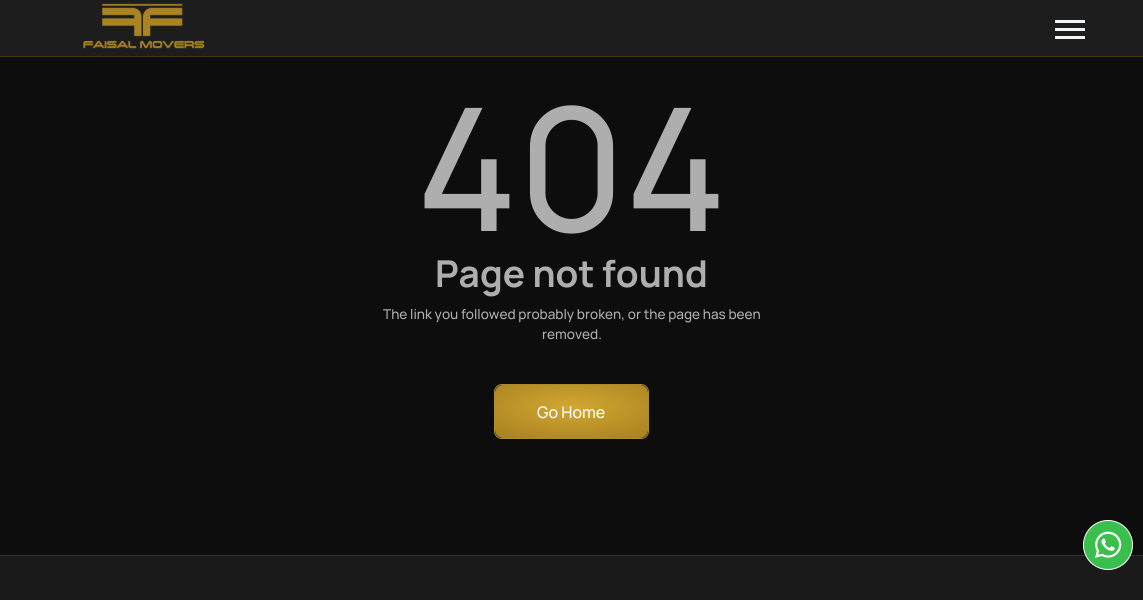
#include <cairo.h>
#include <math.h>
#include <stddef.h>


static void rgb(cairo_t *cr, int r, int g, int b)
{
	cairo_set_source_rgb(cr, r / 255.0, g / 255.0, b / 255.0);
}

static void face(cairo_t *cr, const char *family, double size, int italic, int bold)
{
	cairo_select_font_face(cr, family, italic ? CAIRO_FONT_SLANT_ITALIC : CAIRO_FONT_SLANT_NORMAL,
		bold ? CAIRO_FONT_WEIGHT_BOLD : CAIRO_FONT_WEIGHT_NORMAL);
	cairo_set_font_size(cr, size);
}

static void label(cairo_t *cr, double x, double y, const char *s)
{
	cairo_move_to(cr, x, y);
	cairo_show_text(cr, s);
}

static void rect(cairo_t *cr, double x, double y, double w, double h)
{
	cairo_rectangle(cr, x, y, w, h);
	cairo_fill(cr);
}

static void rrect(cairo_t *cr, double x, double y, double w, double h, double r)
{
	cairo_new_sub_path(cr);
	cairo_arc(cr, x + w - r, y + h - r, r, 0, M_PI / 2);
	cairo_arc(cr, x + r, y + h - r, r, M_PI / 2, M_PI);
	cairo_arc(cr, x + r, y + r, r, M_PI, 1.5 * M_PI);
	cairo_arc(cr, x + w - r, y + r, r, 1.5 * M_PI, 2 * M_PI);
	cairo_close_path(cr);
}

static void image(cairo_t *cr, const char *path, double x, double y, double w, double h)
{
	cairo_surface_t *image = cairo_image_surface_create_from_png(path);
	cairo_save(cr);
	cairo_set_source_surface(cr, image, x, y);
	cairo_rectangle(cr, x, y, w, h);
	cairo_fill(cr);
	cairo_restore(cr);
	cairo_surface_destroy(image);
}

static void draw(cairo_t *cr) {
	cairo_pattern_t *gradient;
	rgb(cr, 13, 13, 13);
	cairo_paint(cr);
	rgb(cr, 29, 29, 29);
	rect(cr, 0, 0, 1143, 56);
	rgb(cr, 67, 52, 13);
	rect(cr, 0, 56, 1143, 1);
	image(cr, "image0.png", 83, 3, 122, 46);
	rgb(cr, 242, 245, 247);
	rect(cr, 1055, 20, 30, 3);
	rect(cr, 1055, 28, 30, 3);
	rect(cr, 1055, 36, 30, 3);
	face(cr, "Manrope Medium", 171, 0, 0);
	rgb(cr, 174, 174, 174);
	label(cr, 416, 231, "404");
	face(cr, "Manrope", 37, 0, 1);
	label(cr, 435, 287, "Page not found");
	face(cr, "Manrope Medium", 13.55, 0, 0);
	label(cr, 383, 319, "The link you followed probably broken, or the page has been");
	label(cr, 542, 339, "removed.");
	rrect(cr, 494.5, 384.5, 154, 54, 7.5);
	rgb(cr, 173, 138, 44);
	cairo_set_line_width(cr, 1);
	cairo_stroke(cr);
	gradient = cairo_pattern_create_radial(0, 0, 0, 0, 0, 1);
	cairo_pattern_set_matrix(gradient, &(cairo_matrix_t){1.0 / 108, 0, 0, 1.0 / 37, -1.0 * 572 / 108, -1.0 * 407 / 37});
	cairo_pattern_add_color_stop_rgba(gradient, 0, 0.827, 0.655, 0.196, 1);
	cairo_pattern_add_color_stop_rgba(gradient, 1, 0.663, 0.518, 0.129, 1);
	cairo_set_source(cr, gradient);
	cairo_pattern_destroy(gradient);
	rrect(cr, 495, 385, 153, 53, 8);
	cairo_fill(cr);
	face(cr, "Manrope Medium", 16, 0, 0);
	rgb(cr, 255, 255, 255);
	label(cr, 537, 418, "Go Home");
	rgb(cr, 26, 26, 26);
	rect(cr, 0, 556, 1143, 44);
	rgb(cr, 49, 49, 49);
	rect(cr, 0, 555, 1143, 1);
	rgb(cr, 58, 191, 76);
	cairo_new_path(cr);
	cairo_arc(cr, 1108, 545, 24.5, 0, 2 * M_PI);
	cairo_fill_preserve(cr);
	rgb(cr, 255, 255, 255);
	cairo_stroke(cr);
	image(cr, "image1.png", 1095, 531, 27, 27);
}

int main(void) {
	cairo_surface_t *surface = cairo_image_surface_create(CAIRO_FORMAT_RGB24, 1143, 600);
	cairo_t *cr = cairo_create(surface);
	cairo_font_options_t *options = cairo_font_options_create();
	cairo_font_options_set_hint_metrics(options, CAIRO_HINT_METRICS_OFF);
	cairo_font_options_set_hint_style(options, CAIRO_HINT_STYLE_NONE);
	cairo_set_font_options(cr, options);
	cairo_set_miter_limit(cr, 4);
	draw(cr);
	cairo_surface_write_to_png(surface, "render.png");
	cairo_font_options_destroy(options);
	cairo_destroy(cr);
	cairo_surface_destroy(surface);
	return 0;
}
